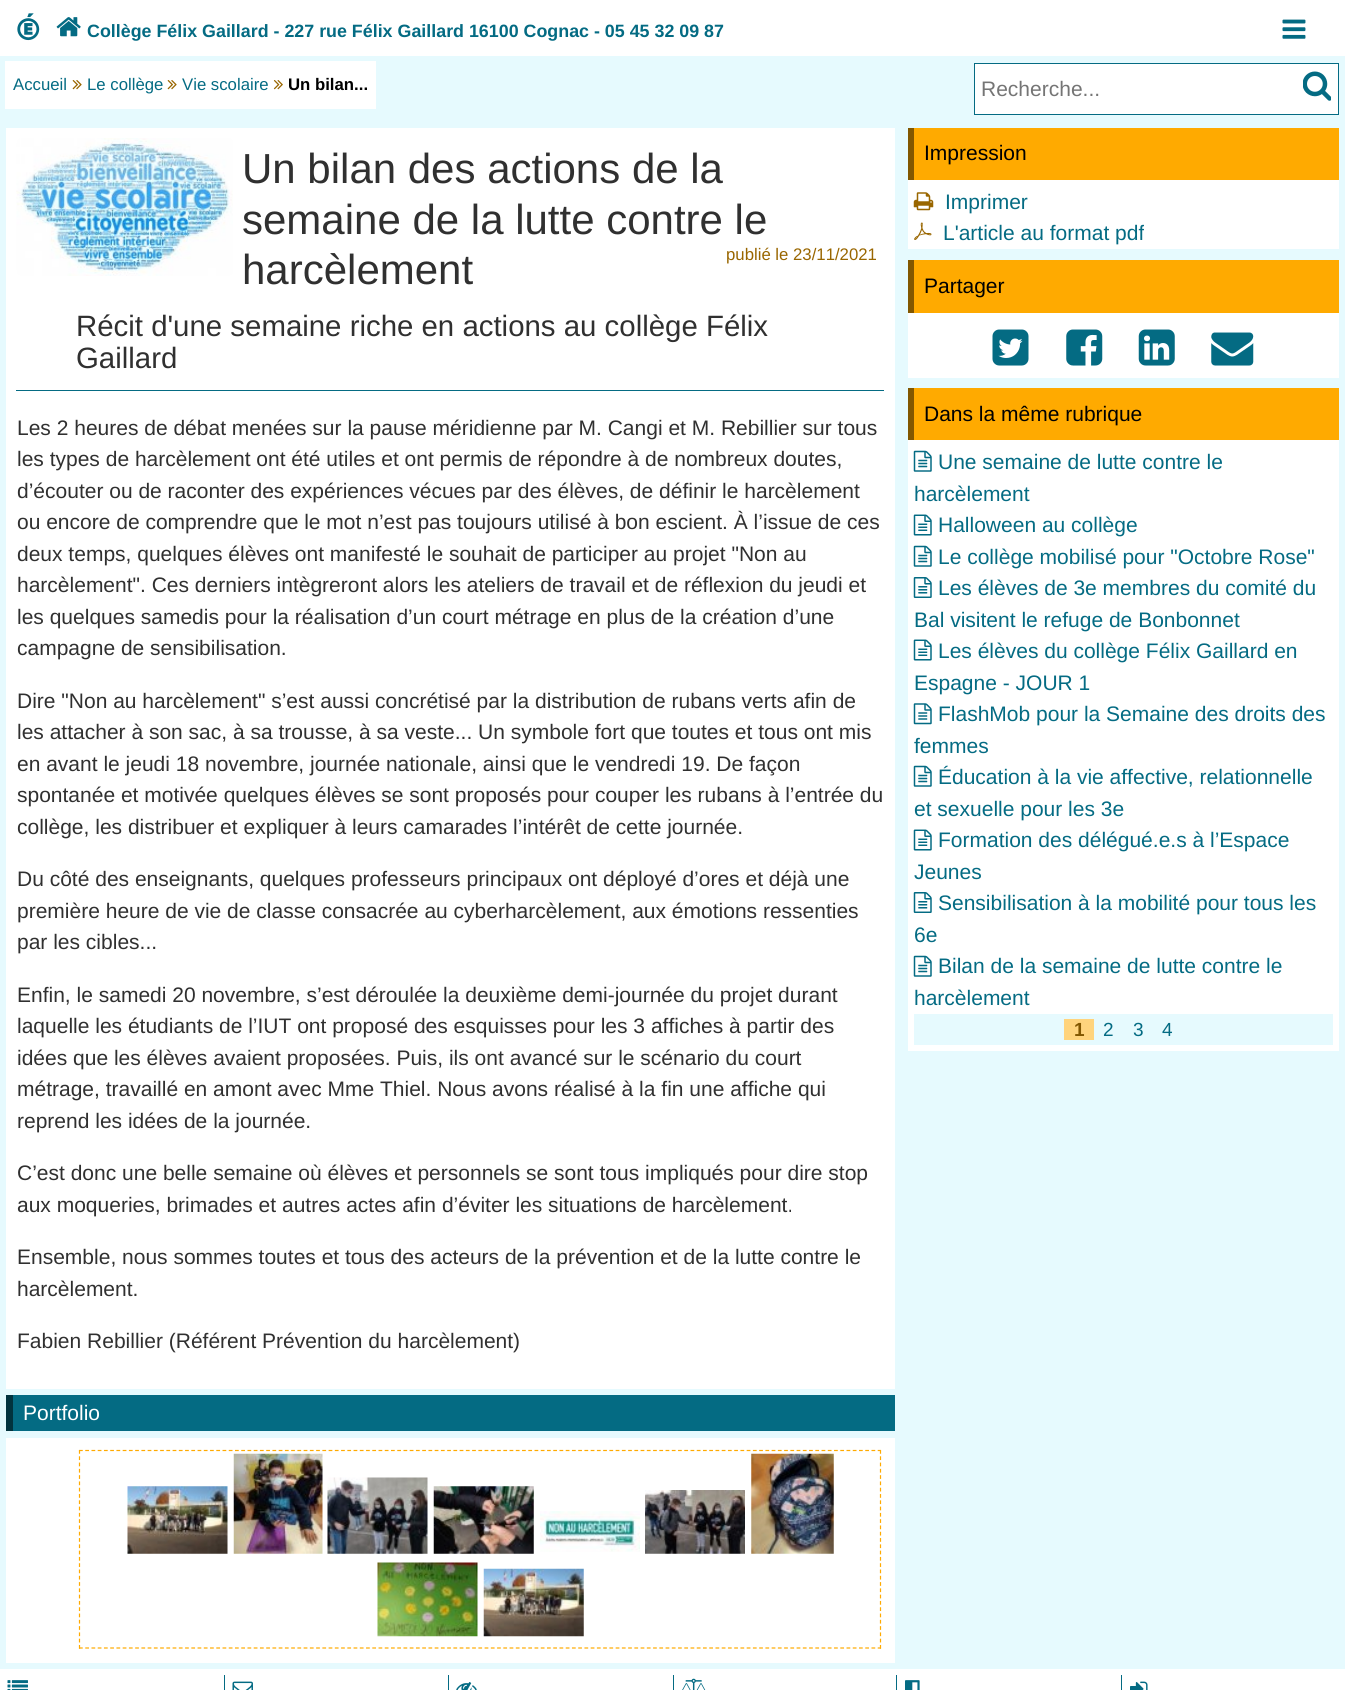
#include <cairo.h>
#include <math.h>
#include <stddef.h>


static void rgb(cairo_t *cr, int r, int g, int b)
{
	cairo_set_source_rgb(cr, r / 255.0, g / 255.0, b / 255.0);
}

static void face(cairo_t *cr, const char *family, double size, int italic, int bold)
{
	cairo_select_font_face(cr, family, italic ? CAIRO_FONT_SLANT_ITALIC : CAIRO_FONT_SLANT_NORMAL,
		bold ? CAIRO_FONT_WEIGHT_BOLD : CAIRO_FONT_WEIGHT_NORMAL);
	cairo_set_font_size(cr, size);
}

static void label(cairo_t *cr, double x, double y, const char *s)
{
	cairo_move_to(cr, x, y);
	cairo_show_text(cr, s);
}

static void rect(cairo_t *cr, double x, double y, double w, double h)
{
	cairo_rectangle(cr, x, y, w, h);
	cairo_fill(cr);
}

static void image(cairo_t *cr, const char *path, double x, double y, double w, double h)
{
	cairo_surface_t *image = cairo_image_surface_create_from_png(path);
	cairo_save(cr);
	cairo_set_source_surface(cr, image, x, y);
	cairo_rectangle(cr, x, y, w, h);
	cairo_fill(cr);
	cairo_restore(cr);
	cairo_surface_destroy(image);
}

static void draw(cairo_t *cr) {
	rgb(cr, 230, 250, 254);
	cairo_paint(cr);
	rgb(cr, 255, 255, 255);
	rect(cr, 0, 0, 1345, 56);
	image(cr, "image0.png", 17, 13, 23, 28);
	image(cr, "image1.png", 56, 17, 25, 20);
	face(cr, "Liberation Sans", 17.85, 0, 1);
	rgb(cr, 4, 107, 131);
	label(cr, 87, 37, "Collège Félix Gaillard - 227 rue Félix Gaillard 16100 Cognac - 05 45 32 09 87");
	image(cr, "image2.png", 1282, 19, 24, 20);
	rgb(cr, 255, 255, 255);
	rect(cr, 5, 61, 371, 48);
	face(cr, "Liberation Sans", 16.75, 0, 0);
	rgb(cr, 4, 107, 131);
	label(cr, 13, 90, "Accueil");
	image(cr, "image3.png", 72, 80, 10, 10);
	label(cr, 87, 90, "Le collège");
	image(cr, "image3.png", 167, 80, 10, 10);
	label(cr, 182, 90, "Vie scolaire");
	image(cr, "image4.png", 273, 80, 10, 10);
	face(cr, "Liberation Sans", 16.75, 0, 1);
	rgb(cr, 0, 0, 0);
	label(cr, 288, 90, "Un bilan...");
	rgb(cr, 255, 255, 255);
	cairo_rectangle(cr, 974.5, 63.5, 364, 51);
	cairo_fill_preserve(cr);
	rgb(cr, 4, 107, 131);
	cairo_set_line_width(cr, 1);
	cairo_stroke(cr);
	face(cr, "Liberation Sans", 21, 0, 0);
	rgb(cr, 117, 117, 117);
	label(cr, 981, 96, "Recherche...");
	image(cr, "image5.png", 1303, 71, 28, 30);
	rgb(cr, 255, 255, 255);
	rect(cr, 6, 128, 889, 1261);
	image(cr, "image6.png", 16, 138, 217, 138);
	face(cr, "Liberation Sans", 42, 0, 0);
	rgb(cr, 48, 48, 48);
	label(cr, 242, 183, "Un bilan des actions de la");
	label(cr, 242, 234, "semaine de la lutte contre le");
	label(cr, 242, 284, "harcèlement");
	face(cr, "Liberation Sans", 16.75, 0, 0);
	rgb(cr, 153, 102, 0);
	label(cr, 726, 260, "publié le 23/11/2021");
	face(cr, "Liberation Sans", 29.4, 0, 0);
	rgb(cr, 48, 48, 48);
	label(cr, 76, 336, "Récit d'une semaine riche en actions au collège Félix");
	label(cr, 76, 368, "Gaillard");
	rgb(cr, 4, 107, 131);
	rect(cr, 16, 390, 868, 1);
	face(cr, "Liberation Sans", 21, 0, 0);
	rgb(cr, 48, 48, 48);
	label(cr, 17, 435, "Les 2 heures de débat menées sur la pause méridienne par M. Cangi et M. Rebillier sur tous");
	label(cr, 17, 466, "les types de harcèlement ont été utiles et ont permis de répondre à de nombreux doutes,");
	label(cr, 17, 498, "d’écouter ou de raconter des expériences vécues par des élèves, de définir le harcèlement");
	label(cr, 17, 529, "ou encore de comprendre que le mot n’est pas toujours utilisé à bon escient. À l’issue de ces");
	label(cr, 17, 561, "deux temps, quelques élèves ont manifesté le souhait de participer au projet \"Non au");
	label(cr, 17, 592, "harcèlement\". Ces derniers intègreront alors les ateliers de travail et de réflexion du jeudi et");
	label(cr, 17, 624, "les quelques samedis pour la réalisation d’un court métrage en plus de la création d’une");
	label(cr, 17, 655, "campagne de sensibilisation.");
	label(cr, 17, 708, "Dire \"Non au harcèlement\" s’est aussi concrétisé par la distribution de rubans verts afin de");
	label(cr, 17, 739, "les attacher à son sac, à sa trousse, à sa veste... Un symbole fort que toutes et tous ont mis");
	label(cr, 17, 771, "en avant le jeudi 18 novembre, journée nationale, ainsi que le vendredi 19. De façon");
	label(cr, 17, 802, "spontanée et motivée quelques élèves se sont proposés pour couper les rubans à l’entrée du");
	label(cr, 17, 834, "collège, les distribuer et expliquer à leurs camarades l’intérêt de cette journée.");
	label(cr, 17, 886, "Du côté des enseignants, quelques professeurs principaux ont déployé d’ores et déjà une");
	label(cr, 17, 918, "première heure de vie de classe consacrée au cyberharcèlement, aux émotions ressenties");
	label(cr, 17, 949, "par les cibles...");
	label(cr, 17, 1002, "Enfin, le samedi 20 novembre, s’est déroulée la deuxième demi-journée du projet durant");
	label(cr, 17, 1033, "laquelle les étudiants de l’IUT ont proposé des esquisses pour les 3 affiches à partir des");
	label(cr, 17, 1065, "idées que les élèves avaient proposées. Puis, ils ont avancé sur le scénario du court");
	label(cr, 17, 1096, "métrage, travaillé en amont avec Mme Thiel. Nous avons réalisé à la fin une affiche qui");
	label(cr, 17, 1128, "reprend les idées de la journée.");
	label(cr, 17, 1180, "C’est donc une belle semaine où élèves et personnels se sont tous impliqués pour dire stop");
	label(cr, 17, 1212, "aux moqueries, brimades et autres actes afin d’éviter les situations de harcèlement.");
	label(cr, 17, 1264, "Ensemble, nous sommes toutes et tous des acteurs de la prévention et de la lutte contre le");
	label(cr, 17, 1296, "harcèlement.");
	label(cr, 17, 1348, "Fabien Rebillier (Référent Prévention du harcèlement)");
	rgb(cr, 4, 107, 131);
	rect(cr, 13, 1395, 882, 36);
	rgb(cr, 2, 51, 62);
	rect(cr, 6, 1395, 7, 36);
	rgb(cr, 255, 255, 255);
	label(cr, 23, 1420, "Portfolio");
	rect(cr, 6, 1438, 889, 225);
	cairo_new_path(cr);
	cairo_move_to(cr, 79, 1450.5);
	cairo_line_to(cr, 881, 1450.5);
	rgb(cr, 255, 170, 0);
	cairo_set_line_width(cr, 1.2);
	cairo_set_dash(cr, (double[]){3.75, 2.49}, 2, 0);
	cairo_stroke(cr);
	cairo_new_path(cr);
	cairo_move_to(cr, 880.5, 1450);
	cairo_line_to(cr, 880.5, 1649);
	cairo_set_dash(cr, (double[]){3.75, 2.54}, 2, 0);
	cairo_stroke(cr);
	cairo_new_path(cr);
	cairo_move_to(cr, 79, 1648);
	cairo_line_to(cr, 881, 1648);
	cairo_set_dash(cr, (double[]){3.75, 2.49}, 2, 0);
	cairo_stroke(cr);
	cairo_new_path(cr);
	cairo_move_to(cr, 79.5, 1450);
	cairo_line_to(cr, 79.5, 1649);
	cairo_set_dash(cr, (double[]){3.75, 2.54}, 2, 0);
	cairo_stroke(cr);
	image(cr, "image7.png", 127, 1486, 101, 68);
	image(cr, "image8.png", 233, 1453, 90, 101);
	image(cr, "image9.png", 327, 1477, 101, 77);
	image(cr, "image10.png", 433, 1486, 101, 68);
	image(cr, "image11.png", 540, 1511, 100, 41);
	image(cr, "image12.png", 645, 1490, 100, 64);
	image(cr, "image13.png", 751, 1453, 83, 101);
	image(cr, "image14.png", 377, 1562, 101, 75);
	image(cr, "image15.png", 483, 1568, 101, 69);
	rgb(cr, 255, 255, 255);
	rect(cr, 908, 180, 431, 69);
	rgb(cr, 255, 170, 0);
	rect(cr, 914, 128, 425, 52);
	rgb(cr, 130, 87, 0);
	rect(cr, 908, 128, 6, 52);
	rgb(cr, 0, 0, 0);
	label(cr, 924, 160, "Impression");
	image(cr, "image16.png", 913, 192, 21, 19);
	rgb(cr, 4, 107, 131);
	label(cr, 945, 209, "Imprimer");
	image(cr, "image17.png", 914, 222, 18, 18);
	label(cr, 943, 240, "L'article au format pdf");
	rgb(cr, 255, 255, 255);
	rect(cr, 908, 313, 431, 65);
	rgb(cr, 255, 170, 0);
	rect(cr, 914, 260, 425, 53);
	rgb(cr, 130, 87, 0);
	rect(cr, 908, 260, 6, 53);
	rgb(cr, 0, 0, 0);
	label(cr, 924, 293, "Partager");
	image(cr, "image18.png", 992, 329, 37, 37);
	image(cr, "image19.png", 1066, 329, 37, 37);
	image(cr, "image20.png", 1138, 329, 37, 37);
	image(cr, "image21.png", 1211, 332, 43, 34);
	rgb(cr, 255, 255, 255);
	rect(cr, 908, 440, 431, 611);
	rgb(cr, 255, 170, 0);
	rect(cr, 914, 388, 425, 52);
	rgb(cr, 130, 87, 0);
	rect(cr, 908, 388, 6, 52);
	rgb(cr, 0, 0, 0);
	label(cr, 924, 421, "Dans la même rubrique");
	image(cr, "image22.png", 913, 450, 19, 22);
	rgb(cr, 4, 107, 131);
	label(cr, 938, 469, "Une semaine de lutte contre le");
	label(cr, 914, 501, "harcèlement");
	image(cr, "image23.png", 913, 514, 19, 22);
	label(cr, 938, 532, "Halloween au collège");
	image(cr, "image22.png", 913, 545, 19, 22);
	label(cr, 938, 564, "Le collège mobilisé pour \"Octobre Rose\"");
	image(cr, "image24.png", 913, 577, 19, 21);
	label(cr, 938, 595, "Les élèves de 3e membres du comité du");
	label(cr, 914, 627, "Bal visitent le refuge de Bonbonnet");
	image(cr, "image23.png", 913, 639, 19, 22);
	label(cr, 938, 658, "Les élèves du collège Félix Gaillard en");
	label(cr, 914, 690, "Espagne - JOUR 1");
	image(cr, "image25.png", 913, 703, 19, 22);
	label(cr, 938, 721, "FlashMob pour la Semaine des droits des");
	label(cr, 914, 753, "femmes");
	image(cr, "image22.png", 913, 765, 19, 22);
	label(cr, 938, 784, "Éducation à la vie affective, relationnelle");
	label(cr, 914, 816, "et sexuelle pour les 3e");
	image(cr, "image23.png", 913, 829, 19, 22);
	label(cr, 938, 847, "Formation des délégué.e.s à l’Espace");
	label(cr, 914, 879, "Jeunes");
	image(cr, "image24.png", 913, 892, 19, 21);
	label(cr, 938, 910, "Sensibilisation à la mobilité pour tous les");
	label(cr, 914, 942, "6e");
	image(cr, "image22.png", 913, 955, 19, 22);
	label(cr, 938, 973, "Bilan de la semaine de lutte contre le");
	label(cr, 914, 1005, "harcèlement");
	rgb(cr, 230, 250, 254);
	rect(cr, 914, 1014, 419, 31);
	rgb(cr, 255, 212, 125);
	rect(cr, 1064, 1019, 30, 21);
	face(cr, "Liberation Sans", 19, 0, 1);
	rgb(cr, 130, 87, 0);
	label(cr, 1074, 1036, "1");
	face(cr, "Liberation Sans", 19, 0, 0);
	rgb(cr, 4, 107, 131);
	label(cr, 1103, 1036, "2");
	label(cr, 1133, 1036, "3");
	label(cr, 1162, 1036, "4");
	rgb(cr, 255, 255, 255);
	rect(cr, 0, 1669, 1345, 21);
	image(cr, "image26.png", 7, 1680, 21, 10);
	rgb(cr, 4, 107, 131);
	rect(cr, 224, 1675, 1, 15);
	image(cr, "image27.png", 232, 1681, 21, 9);
	rect(cr, 448, 1675, 1, 15);
	image(cr, "image28.png", 456, 1682, 21, 8);
	rect(cr, 673, 1675, 1, 15);
	image(cr, "image29.png", 682, 1678, 24, 12);
	rect(cr, 896, 1675, 1, 15);
	image(cr, "image30.png", 905, 1680, 15, 10);
	rect(cr, 1121, 1675, 1, 15);
	image(cr, "image31.png", 1130, 1681, 18, 9);
}

int main(void) {
	cairo_surface_t *surface = cairo_image_surface_create(CAIRO_FORMAT_RGB24, 1345, 1690);
	cairo_t *cr = cairo_create(surface);
	cairo_font_options_t *options = cairo_font_options_create();
	cairo_font_options_set_hint_metrics(options, CAIRO_HINT_METRICS_OFF);
	cairo_font_options_set_hint_style(options, CAIRO_HINT_STYLE_NONE);
	cairo_set_font_options(cr, options);
	cairo_set_miter_limit(cr, 4);
	draw(cr);
	cairo_surface_write_to_png(surface, "render.png");
	cairo_font_options_destroy(options);
	cairo_destroy(cr);
	cairo_surface_destroy(surface);
	return 0;
}
